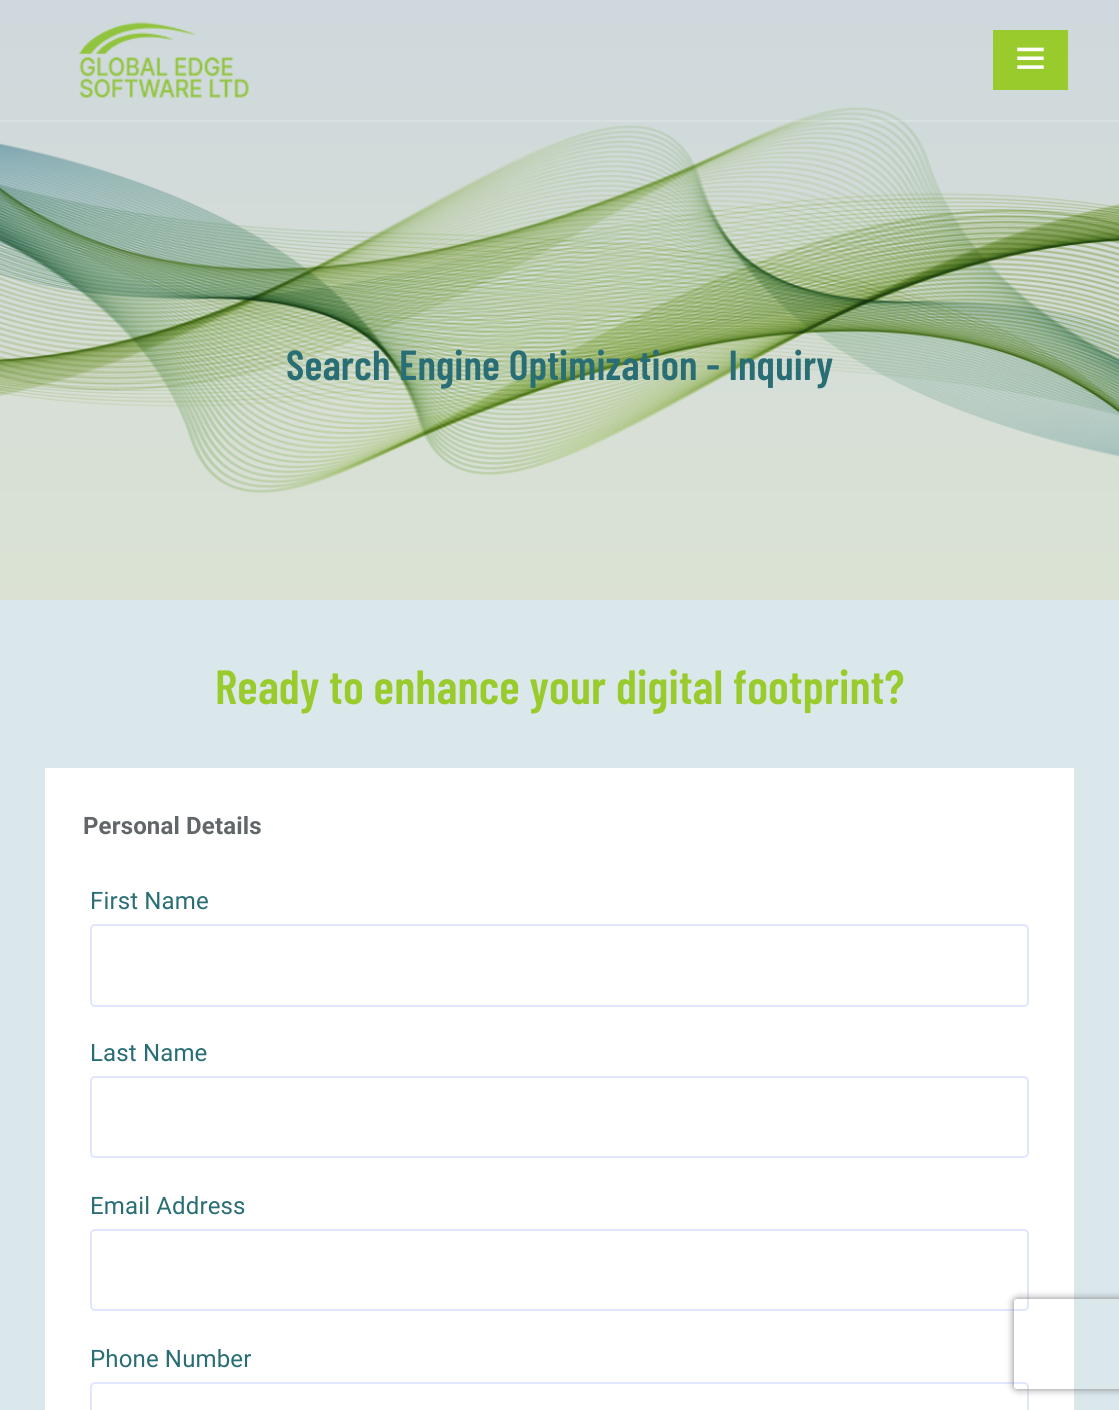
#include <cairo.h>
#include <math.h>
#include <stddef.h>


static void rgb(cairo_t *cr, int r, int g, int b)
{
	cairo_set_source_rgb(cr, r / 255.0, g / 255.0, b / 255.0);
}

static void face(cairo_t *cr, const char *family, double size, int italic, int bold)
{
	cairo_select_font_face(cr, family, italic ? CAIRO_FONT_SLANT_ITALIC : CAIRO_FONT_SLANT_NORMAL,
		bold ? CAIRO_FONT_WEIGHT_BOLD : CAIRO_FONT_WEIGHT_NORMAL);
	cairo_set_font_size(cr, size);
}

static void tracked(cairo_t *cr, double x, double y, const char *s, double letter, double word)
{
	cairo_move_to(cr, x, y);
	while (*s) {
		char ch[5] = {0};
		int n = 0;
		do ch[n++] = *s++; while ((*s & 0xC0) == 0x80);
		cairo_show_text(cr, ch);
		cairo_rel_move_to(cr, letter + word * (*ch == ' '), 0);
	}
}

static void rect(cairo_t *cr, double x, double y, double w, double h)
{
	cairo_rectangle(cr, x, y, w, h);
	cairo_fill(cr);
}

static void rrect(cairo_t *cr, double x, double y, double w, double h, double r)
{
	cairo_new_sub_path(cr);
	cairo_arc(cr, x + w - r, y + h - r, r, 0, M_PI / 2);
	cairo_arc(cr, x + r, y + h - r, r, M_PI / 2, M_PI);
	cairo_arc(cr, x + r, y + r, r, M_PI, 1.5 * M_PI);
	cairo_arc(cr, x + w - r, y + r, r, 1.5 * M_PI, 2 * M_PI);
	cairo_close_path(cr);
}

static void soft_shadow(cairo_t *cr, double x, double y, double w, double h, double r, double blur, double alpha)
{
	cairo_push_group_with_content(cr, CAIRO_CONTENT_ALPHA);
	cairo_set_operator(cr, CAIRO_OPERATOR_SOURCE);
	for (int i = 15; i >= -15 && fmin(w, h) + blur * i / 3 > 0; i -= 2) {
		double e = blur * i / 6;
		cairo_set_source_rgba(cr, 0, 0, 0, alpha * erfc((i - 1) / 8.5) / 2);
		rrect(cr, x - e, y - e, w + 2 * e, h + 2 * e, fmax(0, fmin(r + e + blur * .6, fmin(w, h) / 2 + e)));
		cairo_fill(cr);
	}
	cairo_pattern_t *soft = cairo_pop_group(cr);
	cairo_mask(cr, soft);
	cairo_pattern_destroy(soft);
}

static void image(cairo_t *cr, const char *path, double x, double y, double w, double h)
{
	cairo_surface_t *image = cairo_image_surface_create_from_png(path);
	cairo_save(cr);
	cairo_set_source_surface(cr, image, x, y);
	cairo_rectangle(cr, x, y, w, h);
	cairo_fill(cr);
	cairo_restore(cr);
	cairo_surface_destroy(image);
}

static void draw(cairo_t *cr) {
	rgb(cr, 255, 255, 255);
	cairo_paint(cr);
	image(cr, "image2.png", 0, 0, 1119, 600);
	cairo_set_source_rgba(cr, 1, 1, 1, 0.15);
	rect(cr, 0, 120, 1119, 2);
	image(cr, "image0.png", 78, 22, 171, 76);
	rgb(cr, 152, 203, 43);
	rect(cr, 993, 30, 75, 60);
	image(cr, "image1.png", 1017, 47, 27, 22);
	face(cr, "Barlow Condensed SemiBold", 42, 0, 0);
	rgb(cr, 41, 109, 117);
	tracked(cr, 286, 380, "Search Engine Optimization - Inquiry", 0.15, 0);
	rgb(cr, 218, 232, 236);
	rect(cr, 0, 600, 1119, 810);
	face(cr, "Barlow Condensed SemiBold", 48, 0, 0);
	rgb(cr, 152, 203, 43);
	tracked(cr, 215, 704, "Ready to enhance your digital footprint?", 0.15, 0);
	rgb(cr, 255, 255, 255);
	rect(cr, 45, 768, 1029, 642);
	face(cr, "Roboto", 24, 0, 1);
	rgb(cr, 97, 102, 105);
	tracked(cr, 83, 834, "Personal Details", 0.15, 0);
	face(cr, "Roboto", 24, 0, 0);
	rgb(cr, 41, 109, 117);
	tracked(cr, 90, 909, "First Name", 0.15, 0);
	rrect(cr, 91, 925, 937, 81, 4);
	rgb(cr, 225, 230, 255);
	cairo_stroke(cr);
	rgb(cr, 41, 109, 117);
	tracked(cr, 90, 1061, "Last Name", 0.15, 0);
	rrect(cr, 91, 1077, 937, 80, 4);
	rgb(cr, 225, 230, 255);
	cairo_stroke(cr);
	rgb(cr, 41, 109, 117);
	tracked(cr, 90, 1214, "Email Address", 0.15, 0);
	rrect(cr, 91, 1230, 937, 80, 4);
	rgb(cr, 225, 230, 255);
	cairo_stroke(cr);
	rgb(cr, 41, 109, 117);
	tracked(cr, 90, 1367, "Phone Number", 0.15, 0);
	rrect(cr, 91, 1383, 937, 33, 4);
	rgb(cr, 225, 230, 255);
	cairo_stroke(cr);
	cairo_save(cr);
	cairo_set_fill_rule(cr, CAIRO_FILL_RULE_EVEN_ODD);
	cairo_new_path(cr);
	cairo_move_to(cr, 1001, 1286);
	cairo_line_to(cr, 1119, 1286);
	cairo_line_to(cr, 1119, 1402);
	cairo_line_to(cr, 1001, 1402);
	cairo_close_path(cr);
	cairo_move_to(cr, 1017, 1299);
	cairo_line_to(cr, 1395, 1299);
	cairo_curve_to(cr, 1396.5, 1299, 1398, 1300.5, 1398, 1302);
	cairo_line_to(cr, 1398, 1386);
	cairo_curve_to(cr, 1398, 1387.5, 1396.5, 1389, 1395, 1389);
	cairo_line_to(cr, 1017, 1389);
	cairo_curve_to(cr, 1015.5, 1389, 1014, 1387.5, 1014, 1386);
	cairo_line_to(cr, 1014, 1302);
	cairo_curve_to(cr, 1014, 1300.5, 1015.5, 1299, 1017, 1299);
	cairo_close_path(cr);
	cairo_clip(cr);
	rgb(cr, 128, 128, 128);
	soft_shadow(cr, 1014, 1299, 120, 90, 3, 4, 1);
	cairo_restore(cr);
}

int main(void) {
	cairo_surface_t *surface = cairo_image_surface_create(CAIRO_FORMAT_RGB24, 1119, 1410);
	cairo_t *cr = cairo_create(surface);
	cairo_font_options_t *options = cairo_font_options_create();
	cairo_font_options_set_hint_metrics(options, CAIRO_HINT_METRICS_OFF);
	cairo_font_options_set_hint_style(options, CAIRO_HINT_STYLE_NONE);
	cairo_set_font_options(cr, options);
	cairo_set_miter_limit(cr, 4);
	draw(cr);
	cairo_surface_write_to_png(surface, "render.png");
	cairo_font_options_destroy(options);
	cairo_destroy(cr);
	cairo_surface_destroy(surface);
	return 0;
}
